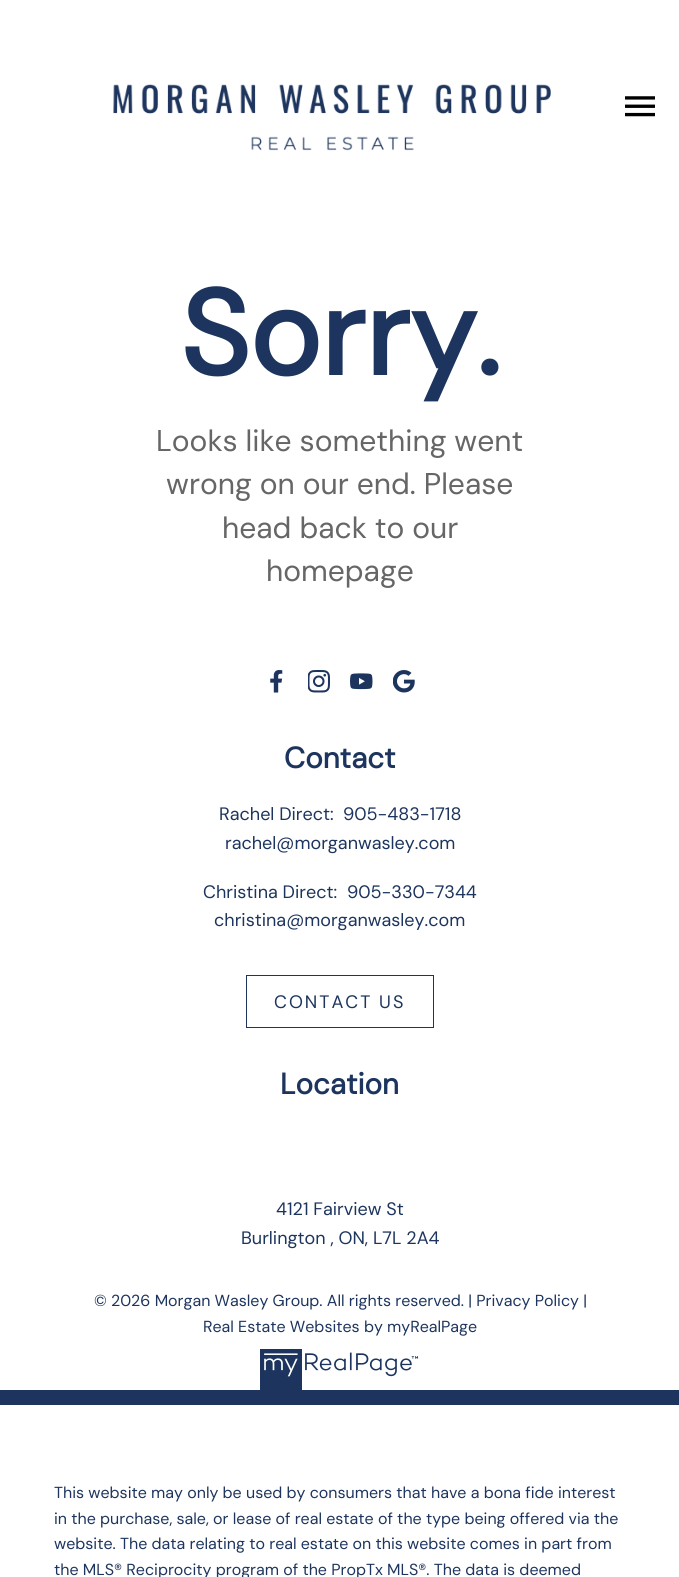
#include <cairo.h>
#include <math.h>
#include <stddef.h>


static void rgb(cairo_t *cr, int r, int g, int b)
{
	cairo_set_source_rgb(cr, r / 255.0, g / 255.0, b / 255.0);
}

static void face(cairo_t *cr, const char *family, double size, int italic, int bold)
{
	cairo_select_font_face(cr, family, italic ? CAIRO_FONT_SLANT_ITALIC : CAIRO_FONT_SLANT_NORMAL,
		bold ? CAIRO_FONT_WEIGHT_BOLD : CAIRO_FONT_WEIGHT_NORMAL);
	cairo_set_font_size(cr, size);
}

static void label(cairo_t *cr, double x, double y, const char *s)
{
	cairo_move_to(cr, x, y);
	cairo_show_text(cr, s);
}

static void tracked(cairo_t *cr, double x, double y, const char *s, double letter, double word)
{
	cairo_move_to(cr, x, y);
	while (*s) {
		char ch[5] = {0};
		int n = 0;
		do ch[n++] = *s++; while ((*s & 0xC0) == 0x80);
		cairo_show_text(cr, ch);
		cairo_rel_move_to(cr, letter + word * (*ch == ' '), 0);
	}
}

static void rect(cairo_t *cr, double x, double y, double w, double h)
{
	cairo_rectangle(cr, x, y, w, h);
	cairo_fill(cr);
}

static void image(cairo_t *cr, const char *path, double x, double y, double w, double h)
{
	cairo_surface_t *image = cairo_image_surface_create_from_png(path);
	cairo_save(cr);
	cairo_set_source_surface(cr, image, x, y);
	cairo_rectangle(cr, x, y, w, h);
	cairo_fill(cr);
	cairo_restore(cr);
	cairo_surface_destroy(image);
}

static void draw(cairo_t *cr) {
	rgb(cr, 255, 255, 255);
	cairo_paint(cr);
	image(cr, "image0.png", 113, 84, 438, 67);
	image(cr, "image1.png", 625, 96, 30, 21);
	face(cr, "DM Sans", 120, 0, 1);
	rgb(cr, 29, 53, 94);
	label(cr, 180, 375, "Sorry.");
	face(cr, "DM Sans", 30, 0, 0);
	rgb(cr, 102, 102, 102);
	label(cr, 156, 451, "Looks like something went");
	label(cr, 166, 494, "wrong on our end. Please");
	label(cr, 222, 538, "head back to our");
	label(cr, 266, 581, "homepage");
	image(cr, "image2.png", 270, 670, 13, 23);
	image(cr, "image3.png", 308, 670, 22, 23);
	image(cr, "image4.png", 350, 673, 23, 17);
	image(cr, "image5.png", 393, 670, 22, 23);
	face(cr, "DM Sans", 29.5, 0, 1);
	rgb(cr, 29, 53, 94);
	label(cr, 284, 768, "Contact");
	face(cr, "DM Sans", 18, 0, 0);
	label(cr, 219, 820, "Rachel Direct:");
	label(cr, 343, 820, "905-483-1718");
	label(cr, 225, 849, "rachel@morganwasley.com");
	label(cr, 203, 898, "Christina Direct:");
	label(cr, 347, 898, "905-330-7344");
	label(cr, 214, 926, "christina@morganwasley.com");
	cairo_rectangle(cr, 246.5, 975.5, 187, 52);
	cairo_set_line_width(cr, 1);
	cairo_stroke(cr);
	tracked(cr, 274, 1008, "CONTACT US", 2, 0);
	face(cr, "DM Sans", 29.5, 0, 1);
	label(cr, 280, 1094, "Location");
	face(cr, "DM Sans", 18, 0, 0);
	label(cr, 276, 1215, "4121 Fairview St");
	label(cr, 241, 1244, "Burlington , ON, L7L 2A4");
	face(cr, "DM Sans", 16, 0, 0);
	label(cr, 94, 1306, "© 2026 Morgan Wasley Group. All rights reserved. | Privacy Policy |");
	label(cr, 203, 1332, "Real Estate Websites by myRealPage");
	image(cr, "image6.png", 260, 1349, 159, 41);
	rect(cr, 0, 1390, 679, 15);
	label(cr, 54, 1498, "This website may only be used by consumers that have a bona fide interest");
	label(cr, 54, 1524, "in the purchase, sale, or lease of real estate of the type being offered via the");
	label(cr, 54, 1549, "website. The data relating to real estate on this website comes in part from");
	label(cr, 54, 1575, "the MLS® Reciprocity program of the PropTx MLS®. The data is deemed");
}

int main(void) {
	cairo_surface_t *surface = cairo_image_surface_create(CAIRO_FORMAT_RGB24, 679, 1577);
	cairo_t *cr = cairo_create(surface);
	cairo_font_options_t *options = cairo_font_options_create();
	cairo_font_options_set_hint_metrics(options, CAIRO_HINT_METRICS_OFF);
	cairo_font_options_set_hint_style(options, CAIRO_HINT_STYLE_NONE);
	cairo_set_font_options(cr, options);
	cairo_set_miter_limit(cr, 4);
	draw(cr);
	cairo_surface_write_to_png(surface, "render.png");
	cairo_font_options_destroy(options);
	cairo_destroy(cr);
	cairo_surface_destroy(surface);
	return 0;
}
